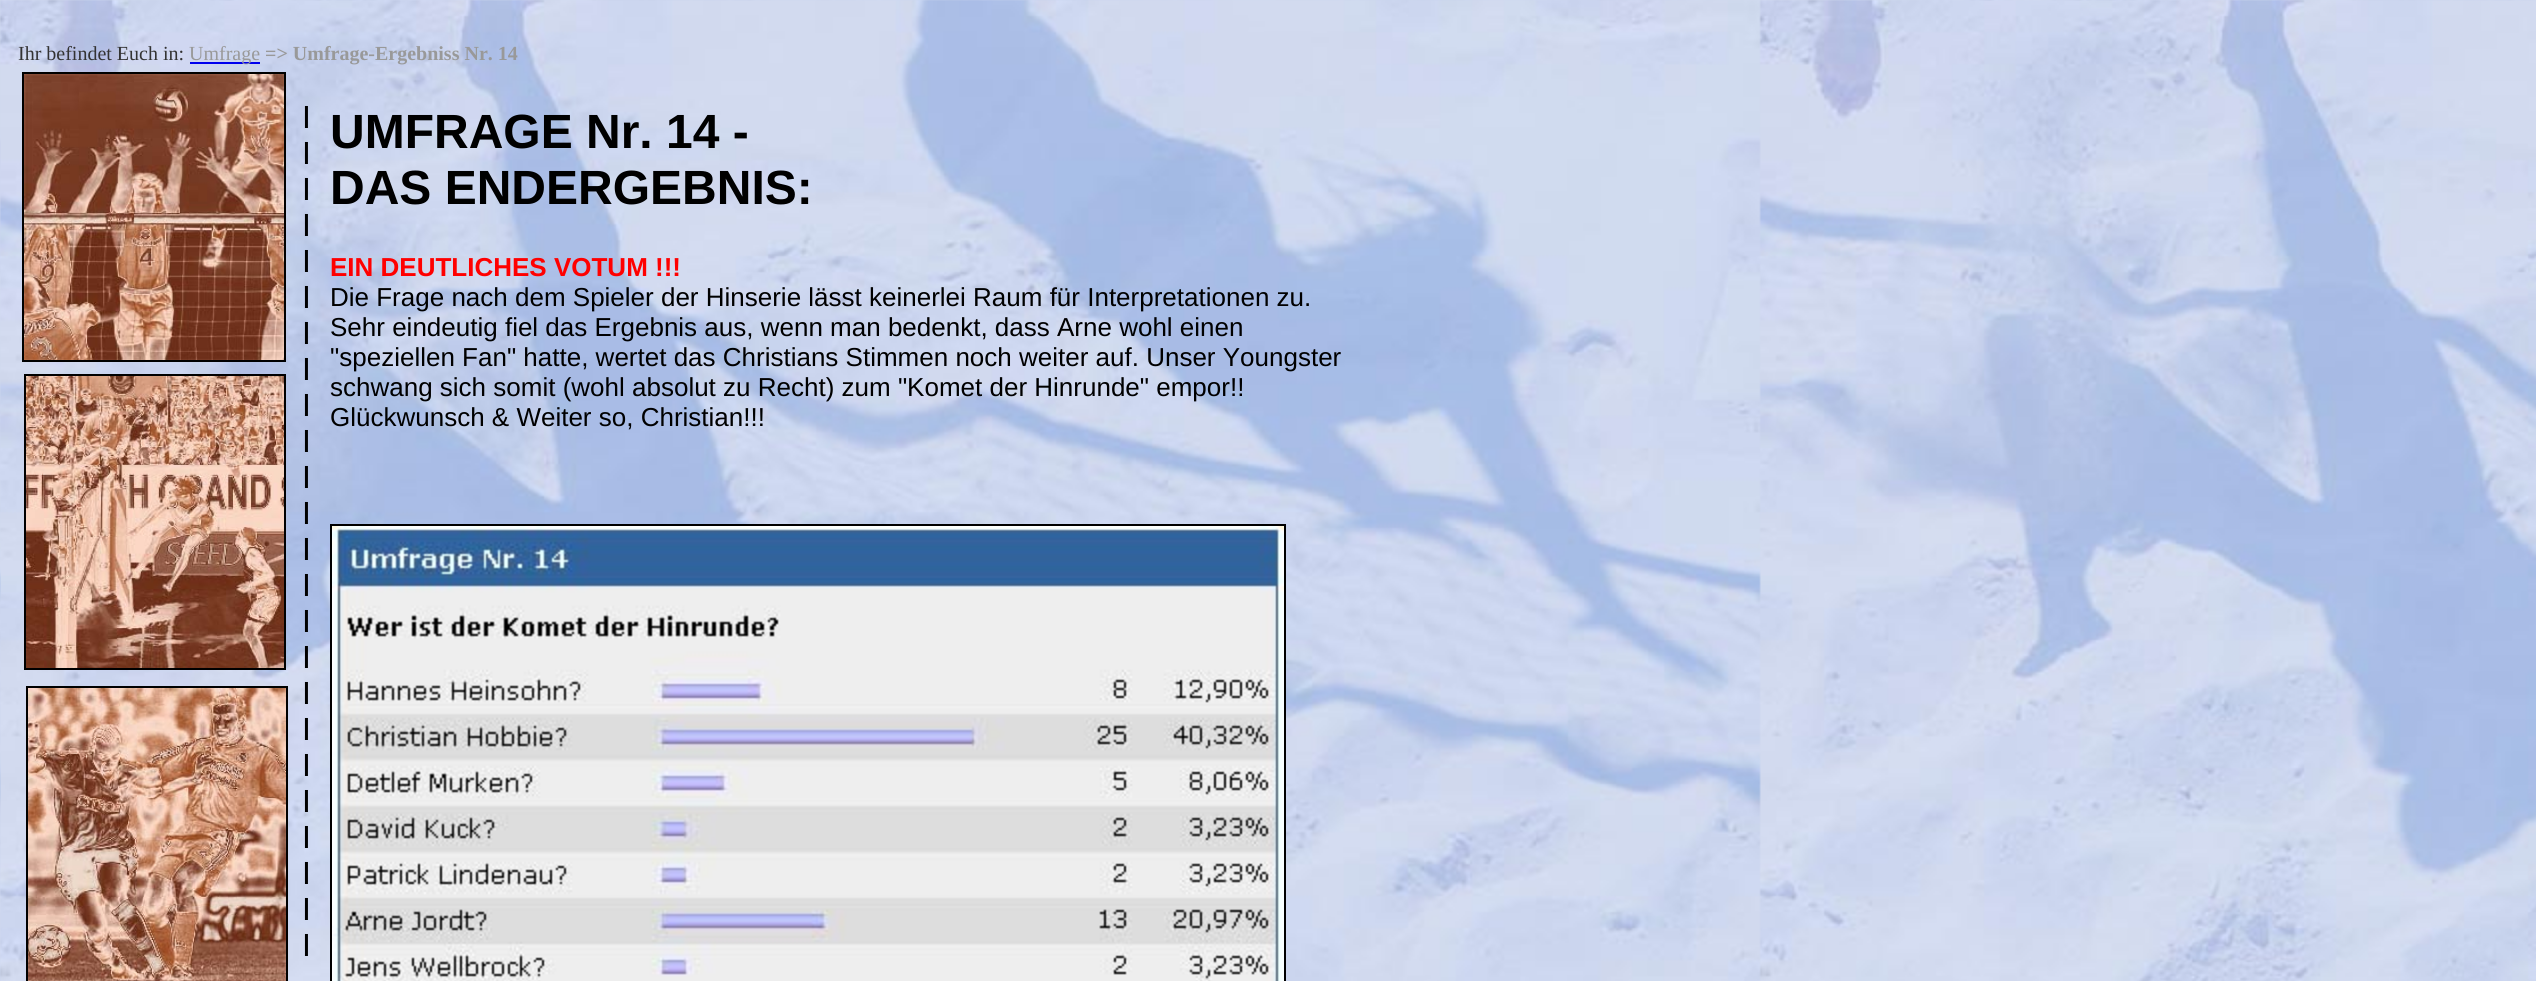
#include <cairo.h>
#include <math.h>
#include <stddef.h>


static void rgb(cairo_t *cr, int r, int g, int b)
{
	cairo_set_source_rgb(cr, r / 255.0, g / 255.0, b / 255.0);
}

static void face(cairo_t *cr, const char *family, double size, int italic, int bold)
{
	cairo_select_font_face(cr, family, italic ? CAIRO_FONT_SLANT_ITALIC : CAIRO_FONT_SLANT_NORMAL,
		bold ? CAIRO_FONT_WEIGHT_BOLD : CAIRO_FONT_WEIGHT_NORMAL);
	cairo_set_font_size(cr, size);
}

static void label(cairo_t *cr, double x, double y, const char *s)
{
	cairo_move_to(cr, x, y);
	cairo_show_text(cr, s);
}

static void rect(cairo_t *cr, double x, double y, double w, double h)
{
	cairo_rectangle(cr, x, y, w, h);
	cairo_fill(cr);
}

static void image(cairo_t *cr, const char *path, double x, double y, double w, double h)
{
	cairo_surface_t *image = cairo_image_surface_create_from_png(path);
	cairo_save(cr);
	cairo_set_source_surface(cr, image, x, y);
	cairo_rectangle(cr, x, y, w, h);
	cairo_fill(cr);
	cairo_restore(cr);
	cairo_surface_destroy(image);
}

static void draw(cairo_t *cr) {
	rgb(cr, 255, 255, 255);
	cairo_paint(cr);
	image(cr, "image0.png", 0, 0, 2536, 981);
	face(cr, "Liberation Serif", 20, 0, 0);
	rgb(cr, 51, 51, 51);
	label(cr, 18, 60, "Ihr befindet Euch in:");
	rgb(cr, 0, 0, 238);
	rect(cr, 190, 62, 70, 2);
	rgb(cr, 153, 153, 153);
	label(cr, 189, 60, "Umfrage");
	face(cr, "Liberation Serif", 20, 0, 1);
	label(cr, 265, 60, "=> Umfrage-Ergebniss Nr. 14");
	cairo_rectangle(cr, 23, 73, 262, 288);
	rgb(cr, 0, 0, 0);
	cairo_stroke(cr);
	image(cr, "image1.png", 24, 74, 260, 286);
	face(cr, "Liberation Sans", 32, 0, 0);
	label(cr, 302, 128, "I");
	label(cr, 302, 164, "I");
	label(cr, 302, 200, "I");
	label(cr, 302, 236, "I");
	label(cr, 302, 272, "I");
	label(cr, 302, 308, "I");
	label(cr, 302, 344, "I");
	label(cr, 302, 380, "I");
	label(cr, 302, 416, "I");
	label(cr, 302, 452, "I");
	label(cr, 302, 488, "I");
	label(cr, 302, 524, "I");
	label(cr, 302, 560, "I");
	label(cr, 302, 596, "I");
	label(cr, 302, 632, "I");
	label(cr, 302, 668, "I");
	label(cr, 302, 704, "I");
	label(cr, 302, 740, "I");
	label(cr, 302, 776, "I");
	label(cr, 302, 812, "I");
	label(cr, 302, 848, "I");
	label(cr, 302, 884, "I");
	label(cr, 302, 920, "I");
	label(cr, 302, 956, "I");
	face(cr, "Liberation Sans", 48, 0, 1);
	label(cr, 330, 148, "UMFRAGE Nr. 14 -");
	label(cr, 330, 204, "DAS ENDERGEBNIS:");
	face(cr, "Liberation Sans", 26, 0, 1);
	rgb(cr, 255, 0, 0);
	label(cr, 330, 276, "EIN DEUTLICHES VOTUM !!!");
	face(cr, "Liberation Sans", 26, 0, 0);
	rgb(cr, 0, 0, 0);
	label(cr, 330, 306, "Die Frage nach dem Spieler der Hinserie lässt keinerlei Raum für Interpretationen zu.");
	label(cr, 330, 336, "Sehr eindeutig fiel das Ergebnis aus, wenn man bedenkt, dass Arne wohl einen");
	label(cr, 330, 366, "\"speziellen Fan\" hatte, wertet das Christians Stimmen noch weiter auf. Unser Youngster");
	label(cr, 330, 396, "schwang sich somit (wohl absolut zu Recht) zum \"Komet der Hinrunde\" empor!!");
	label(cr, 330, 426, "Glückwunsch & Weiter so, Christian!!!");
	cairo_rectangle(cr, 331, 525, 954, 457);
	cairo_stroke(cr);
	image(cr, "image2.png", 332, 526, 952, 455);
	cairo_rectangle(cr, 25, 375, 260, 294);
	cairo_stroke(cr);
	image(cr, "image3.png", 26, 376, 258, 292);
	cairo_rectangle(cr, 27, 687, 260, 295);
	cairo_stroke(cr);
	image(cr, "image4.png", 28, 688, 258, 293);
}

int main(void) {
	cairo_surface_t *surface = cairo_image_surface_create(CAIRO_FORMAT_RGB24, 2536, 981);
	cairo_t *cr = cairo_create(surface);
	cairo_font_options_t *options = cairo_font_options_create();
	cairo_font_options_set_hint_metrics(options, CAIRO_HINT_METRICS_OFF);
	cairo_font_options_set_hint_style(options, CAIRO_HINT_STYLE_NONE);
	cairo_set_font_options(cr, options);
	cairo_set_miter_limit(cr, 4);
	draw(cr);
	cairo_surface_write_to_png(surface, "render.png");
	cairo_font_options_destroy(options);
	cairo_destroy(cr);
	cairo_surface_destroy(surface);
	return 0;
}
